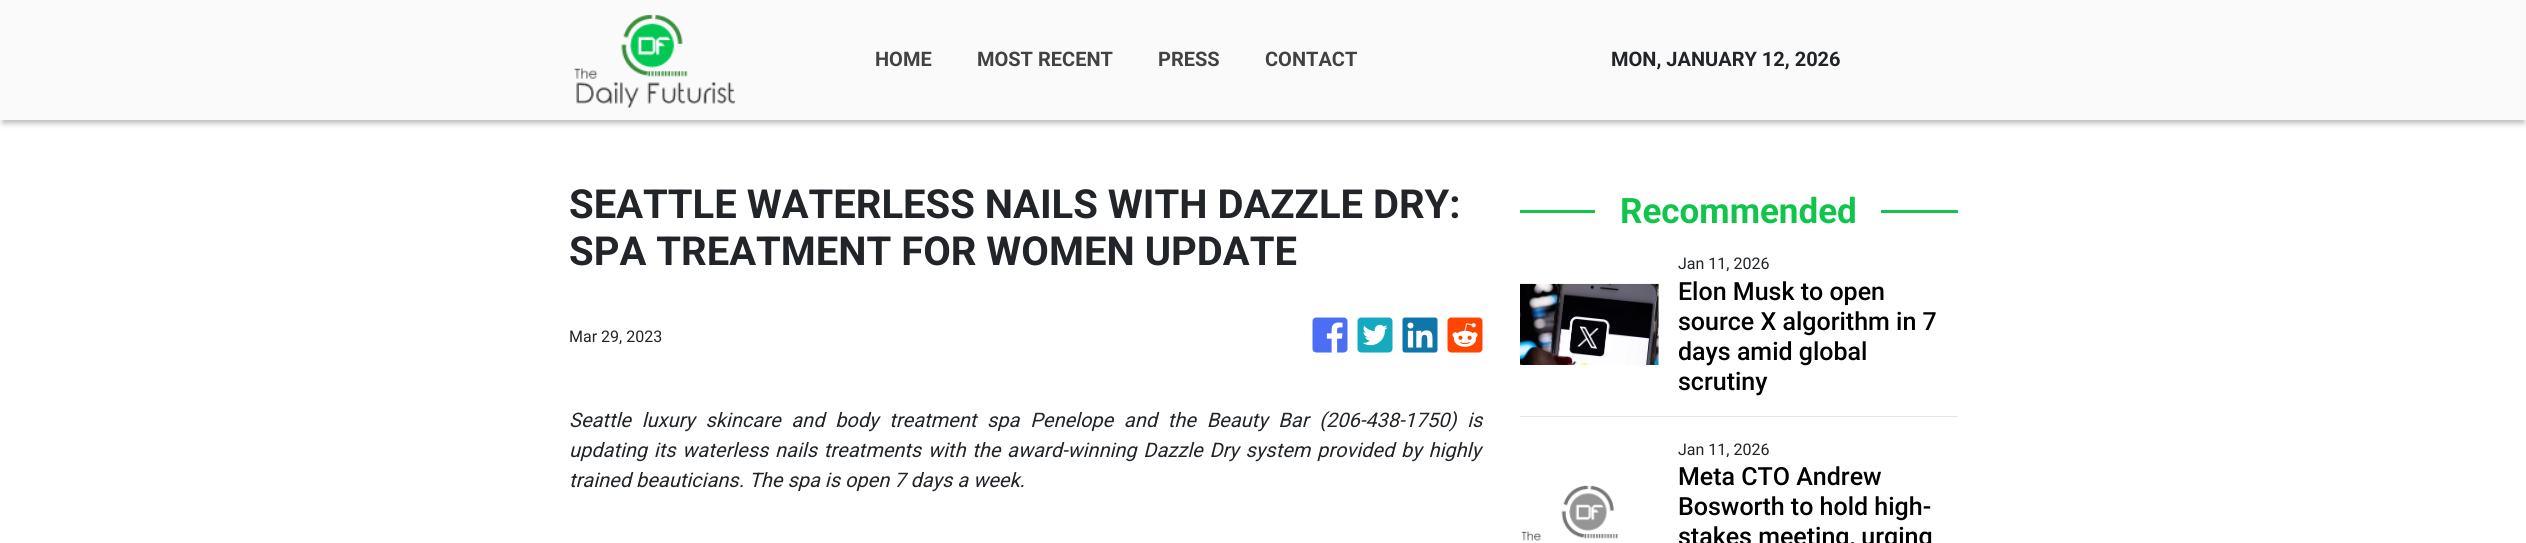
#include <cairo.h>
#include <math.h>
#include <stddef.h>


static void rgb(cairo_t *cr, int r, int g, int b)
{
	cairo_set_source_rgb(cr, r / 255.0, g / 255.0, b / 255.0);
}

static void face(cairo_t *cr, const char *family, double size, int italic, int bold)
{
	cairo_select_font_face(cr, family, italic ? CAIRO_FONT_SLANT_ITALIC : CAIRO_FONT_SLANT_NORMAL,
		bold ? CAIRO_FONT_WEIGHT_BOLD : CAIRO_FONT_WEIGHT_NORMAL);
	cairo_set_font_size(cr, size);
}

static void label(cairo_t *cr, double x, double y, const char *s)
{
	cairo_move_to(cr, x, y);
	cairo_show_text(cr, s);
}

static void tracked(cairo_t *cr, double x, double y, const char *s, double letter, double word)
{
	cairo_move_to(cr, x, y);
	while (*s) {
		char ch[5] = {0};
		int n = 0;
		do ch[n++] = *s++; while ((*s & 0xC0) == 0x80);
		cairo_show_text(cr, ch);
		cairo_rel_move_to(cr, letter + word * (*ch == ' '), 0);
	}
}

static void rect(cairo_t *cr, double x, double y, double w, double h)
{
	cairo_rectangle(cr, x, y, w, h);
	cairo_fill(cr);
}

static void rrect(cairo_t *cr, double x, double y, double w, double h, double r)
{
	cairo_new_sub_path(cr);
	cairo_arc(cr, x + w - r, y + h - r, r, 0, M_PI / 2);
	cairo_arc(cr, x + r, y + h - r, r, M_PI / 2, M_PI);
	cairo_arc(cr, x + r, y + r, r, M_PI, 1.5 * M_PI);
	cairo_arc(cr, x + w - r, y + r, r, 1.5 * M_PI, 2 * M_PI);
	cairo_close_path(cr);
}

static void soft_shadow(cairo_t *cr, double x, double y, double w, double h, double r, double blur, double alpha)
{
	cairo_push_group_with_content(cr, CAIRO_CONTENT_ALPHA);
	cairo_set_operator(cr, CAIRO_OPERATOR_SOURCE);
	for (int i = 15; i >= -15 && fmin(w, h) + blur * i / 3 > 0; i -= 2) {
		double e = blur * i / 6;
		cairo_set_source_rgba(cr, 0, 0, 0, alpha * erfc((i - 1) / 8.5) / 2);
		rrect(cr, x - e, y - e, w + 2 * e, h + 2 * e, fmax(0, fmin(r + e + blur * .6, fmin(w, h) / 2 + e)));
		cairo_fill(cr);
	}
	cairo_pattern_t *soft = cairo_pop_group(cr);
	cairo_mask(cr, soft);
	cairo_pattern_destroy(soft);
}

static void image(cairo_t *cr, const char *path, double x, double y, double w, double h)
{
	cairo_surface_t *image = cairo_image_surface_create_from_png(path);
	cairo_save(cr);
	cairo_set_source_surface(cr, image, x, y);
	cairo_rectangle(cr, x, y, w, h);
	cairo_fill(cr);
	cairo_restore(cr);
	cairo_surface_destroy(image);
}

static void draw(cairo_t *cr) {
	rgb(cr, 255, 255, 255);
	cairo_paint(cr);
	rgb(cr, 182, 182, 182);
	soft_shadow(cr, 3, 8, 2521, 115, 0, 3, 1);
	rgb(cr, 250, 250, 250);
	rect(cr, 0, 0, 2526, 120);
	image(cr, "image0.png", 573, 14, 162, 94);
	face(cr, "Roboto", 20, 0, 1);
	rgb(cr, 66, 66, 66);
	label(cr, 875, 66, "HOME");
	label(cr, 977, 66, "MOST RECENT");
	label(cr, 1158, 66, "PRESS");
	label(cr, 1265, 66, "CONTACT");
	rgb(cr, 33, 37, 41);
	label(cr, 1611, 66, "MON, JANUARY 12, 2026");
	face(cr, "Roboto", 40, 0, 1);
	label(cr, 569, 218, "SEATTLE WATERLESS NAILS WITH DAZZLE DRY:");
	label(cr, 569, 265, "SPA TREATMENT FOR WOMEN UPDATE");
	face(cr, "Roboto", 16, 0, 0);
	label(cr, 569, 342, "Mar 29, 2023");
	image(cr, "image1.png", 1312, 317, 36, 36);
	image(cr, "image2.png", 1357, 317, 36, 36);
	image(cr, "image3.png", 1402, 317, 36, 36);
	image(cr, "image4.png", 1447, 317, 36, 36);
	face(cr, "Roboto", 20, 1, 0);
	tracked(cr, 569, 427, "Seattle luxury skincare and body treatment spa Penelope and the Beauty Bar (206-438-1750) is", 0, 5.75);
	cairo_save(cr);
	cairo_rectangle(cr, 570, 406, 913, 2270);
	cairo_clip(cr);
	tracked(cr, 569, 457, "updating its waterless nails treatments with the award-winning Dazzle Dry system provided by highly", 0, 1.8);
	cairo_restore(cr);
	label(cr, 569, 487, "trained beauticians. The spa is open 7 days a week.");
	rgb(cr, 17, 196, 76);
	rect(cr, 1520, 210, 75, 3);
	face(cr, "Roboto", 35, 0, 1);
	label(cr, 1620, 223, "Recommended");
	rect(cr, 1881, 210, 77, 3);
	image(cr, "image5.png", 1520, 283, 139, 82);
	face(cr, "Roboto", 16, 0, 0);
	rgb(cr, 33, 37, 41);
	label(cr, 1678, 269, "Jan 11, 2026");
	face(cr, "Roboto Medium", 25, 0, 0);
	rgb(cr, 0, 0, 0);
	label(cr, 1678, 300, "Elon Musk to open");
	label(cr, 1678, 330, "source X algorithm in 7");
	label(cr, 1678, 360, "days amid global");
	label(cr, 1678, 390, "scrutiny");
	rgb(cr, 230, 230, 230);
	rect(cr, 1520, 416, 438, 1);
	image(cr, "image6.png", 1521, 485, 98, 56);
	face(cr, "Roboto", 16, 0, 0);
	rgb(cr, 33, 37, 41);
	label(cr, 1678, 455, "Jan 11, 2026");
	face(cr, "Roboto Medium", 25, 0, 0);
	rgb(cr, 0, 0, 0);
	label(cr, 1678, 485, "Meta CTO Andrew");
	label(cr, 1678, 515, "Bosworth to hold high-");
	label(cr, 1678, 545, "stakes meeting, urging");
}

int main(void) {
	cairo_surface_t *surface = cairo_image_surface_create(CAIRO_FORMAT_RGB24, 2526, 543);
	cairo_t *cr = cairo_create(surface);
	cairo_font_options_t *options = cairo_font_options_create();
	cairo_font_options_set_hint_metrics(options, CAIRO_HINT_METRICS_OFF);
	cairo_font_options_set_hint_style(options, CAIRO_HINT_STYLE_NONE);
	cairo_set_font_options(cr, options);
	cairo_set_miter_limit(cr, 4);
	draw(cr);
	cairo_surface_write_to_png(surface, "render.png");
	cairo_font_options_destroy(options);
	cairo_destroy(cr);
	cairo_surface_destroy(surface);
	return 0;
}
